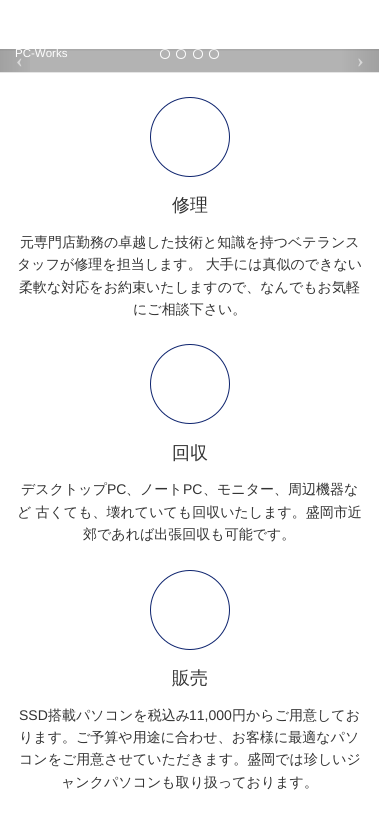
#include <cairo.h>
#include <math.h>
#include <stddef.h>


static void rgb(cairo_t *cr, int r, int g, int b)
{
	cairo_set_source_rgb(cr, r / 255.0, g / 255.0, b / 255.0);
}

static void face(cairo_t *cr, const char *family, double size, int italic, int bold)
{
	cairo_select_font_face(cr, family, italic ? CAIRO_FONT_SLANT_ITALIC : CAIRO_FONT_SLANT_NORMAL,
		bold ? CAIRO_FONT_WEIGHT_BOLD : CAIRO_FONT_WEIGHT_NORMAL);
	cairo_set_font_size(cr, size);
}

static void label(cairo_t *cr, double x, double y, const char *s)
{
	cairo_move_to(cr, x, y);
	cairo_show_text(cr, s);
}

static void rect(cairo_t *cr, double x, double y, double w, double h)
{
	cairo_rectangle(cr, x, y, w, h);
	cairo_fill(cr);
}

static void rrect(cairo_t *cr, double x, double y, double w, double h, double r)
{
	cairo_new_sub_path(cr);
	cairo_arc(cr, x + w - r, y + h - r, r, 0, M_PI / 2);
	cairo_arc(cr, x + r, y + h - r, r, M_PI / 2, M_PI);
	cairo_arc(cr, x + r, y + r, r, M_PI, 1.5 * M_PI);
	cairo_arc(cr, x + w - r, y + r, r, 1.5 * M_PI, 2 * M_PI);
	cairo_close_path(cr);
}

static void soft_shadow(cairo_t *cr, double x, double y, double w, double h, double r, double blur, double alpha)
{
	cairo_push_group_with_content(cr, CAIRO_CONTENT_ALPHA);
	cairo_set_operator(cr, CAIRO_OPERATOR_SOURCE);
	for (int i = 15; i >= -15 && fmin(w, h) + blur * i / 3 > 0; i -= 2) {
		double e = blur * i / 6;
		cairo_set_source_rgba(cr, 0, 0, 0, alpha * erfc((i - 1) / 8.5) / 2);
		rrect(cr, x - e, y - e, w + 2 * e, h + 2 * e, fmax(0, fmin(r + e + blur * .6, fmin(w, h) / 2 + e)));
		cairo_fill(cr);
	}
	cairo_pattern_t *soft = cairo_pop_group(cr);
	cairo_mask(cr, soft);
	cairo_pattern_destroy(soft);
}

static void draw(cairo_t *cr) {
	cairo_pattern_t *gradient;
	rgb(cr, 255, 255, 255);
	cairo_paint(cr);
	rgb(cr, 179, 179, 179);
	rect(cr, 0, 49, 341, 23);
	cairo_arc(cr, 165, 54, 4.5, 0, 2 * M_PI);
	rgb(cr, 255, 255, 255);
	cairo_set_line_width(cr, 1);
	cairo_stroke(cr);
	cairo_arc(cr, 181, 54, 4.5, 0, 2 * M_PI);
	cairo_stroke(cr);
	cairo_arc(cr, 198, 54, 4.5, 0, 2 * M_PI);
	cairo_stroke(cr);
	cairo_arc(cr, 214, 54, 4.5, 0, 2 * M_PI);
	cairo_stroke(cr);
	gradient = cairo_pattern_create_linear(38, 61, 0, 61);
	cairo_pattern_add_color_stop_rgba(gradient, 0, 0, 0, 0, 0);
	cairo_pattern_add_color_stop_rgba(gradient, 1, 0, 0, 0, 0.1);
	cairo_set_source(cr, gradient);
	cairo_pattern_destroy(gradient);
	rect(cr, 0, 49, 30, 23);
	gradient = cairo_pattern_create_linear(341, 61, 379, 61);
	cairo_pattern_add_color_stop_rgba(gradient, 0, 0.702, 0.702, 0.702, 1);
	cairo_pattern_add_color_stop_rgba(gradient, 1, 0.631, 0.631, 0.631, 1);
	cairo_set_source(cr, gradient);
	cairo_pattern_destroy(gradient);
	rect(cr, 341, 49, 38, 23);
	cairo_save(cr);
	cairo_rectangle(cr, 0, 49, 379, 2);
	cairo_clip(cr);
	rgb(cr, 0, 0, 0);
	soft_shadow(cr, 0, 1, 379, 49, 0, 1.5, 0.1);
	cairo_restore(cr);
	rgb(cr, 229, 229, 229);
	rect(cr, 0, 72, 379, 1);
	face(cr, "Liberation Sans", 11.5, 0, 0);
	rgb(cr, 255, 255, 255);
	label(cr, 15, 57, "PC-Works");
	face(cr, "Liberation Serif", 20, 0, 1);
	rgb(cr, 217, 217, 217);
	label(cr, 16, 67, "‹");
	label(cr, 357, 67, "›");
	cairo_new_path(cr);
	cairo_arc(cr, 190, 137, 39.5, 0, 2 * M_PI);
	rgb(cr, 12, 34, 109);
	cairo_stroke(cr);
	face(cr, "WenQuanYi Zen Hei Medium", 18, 0, 0);
	rgb(cr, 51, 51, 51);
	label(cr, 172, 211, "修理");
	face(cr, "WenQuanYi Zen Hei Medium", 14, 0, 0);
	label(cr, 20, 247, "元専門店勤務の卓越した技術と知識を持つベテランス");
	label(cr, 17, 269, "タッフが修理を担当します。 大手には真似のできない");
	label(cr, 19, 292, "柔軟な対応をお約束いたしますので、なんでもお気軽");
	label(cr, 133, 314, "にご相談下さい。");
	cairo_new_path(cr);
	cairo_arc(cr, 190, 384, 39.5, 0, 2 * M_PI);
	rgb(cr, 12, 34, 109);
	cairo_stroke(cr);
	face(cr, "WenQuanYi Zen Hei Medium", 18, 0, 0);
	rgb(cr, 51, 51, 51);
	label(cr, 172, 459, "回収");
	face(cr, "WenQuanYi Zen Hei Medium", 14, 0, 0);
	label(cr, 21, 494, "デスクトップ");
	face(cr, "Liberation Sans", 14, 0, 0);
	label(cr, 107, 494, "PC");
	face(cr, "WenQuanYi Zen Hei Medium", 14, 0, 0);
	label(cr, 126, 494, "、ノート");
	face(cr, "Liberation Sans", 14, 0, 0);
	label(cr, 183, 494, "PC");
	face(cr, "WenQuanYi Zen Hei Medium", 14, 0, 0);
	label(cr, 203, 494, "、モニター、周辺機器な");
	label(cr, 17, 517, "ど 古くても、壊れていても回収いたします。盛岡市近");
	label(cr, 83, 539, "郊であれば出張回収も可能です。");
	cairo_new_path(cr);
	cairo_arc(cr, 190, 610, 39.5, 0, 2 * M_PI);
	rgb(cr, 12, 34, 109);
	cairo_stroke(cr);
	face(cr, "WenQuanYi Zen Hei Medium", 18, 0, 0);
	rgb(cr, 51, 51, 51);
	label(cr, 172, 684, "販売");
	face(cr, "Liberation Sans", 14, 0, 0);
	label(cr, 19, 720, "SSD");
	face(cr, "WenQuanYi Zen Hei Medium", 14, 0, 0);
	label(cr, 48, 720, "搭載パソコンを税込み");
	face(cr, "Liberation Sans", 14, 0, 0);
	label(cr, 189, 720, "11,000");
	face(cr, "WenQuanYi Zen Hei Medium", 14, 0, 0);
	label(cr, 232, 720, "円からご用意してお");
	label(cr, 19, 742, "ります。ご予算や用途に合わせ、お客様に最適なパソ");
	label(cr, 19, 764, "コンをご用意させていただきます。盛岡では珍しいジ");
	label(cr, 61, 787, "ャンクパソコンも取り扱っております。");
}

int main(void) {
	cairo_surface_t *surface = cairo_image_surface_create(CAIRO_FORMAT_RGB24, 379, 825);
	cairo_t *cr = cairo_create(surface);
	cairo_font_options_t *options = cairo_font_options_create();
	cairo_font_options_set_hint_metrics(options, CAIRO_HINT_METRICS_OFF);
	cairo_font_options_set_hint_style(options, CAIRO_HINT_STYLE_NONE);
	cairo_set_font_options(cr, options);
	cairo_set_miter_limit(cr, 4);
	draw(cr);
	cairo_surface_write_to_png(surface, "render.png");
	cairo_font_options_destroy(options);
	cairo_destroy(cr);
	cairo_surface_destroy(surface);
	return 0;
}
